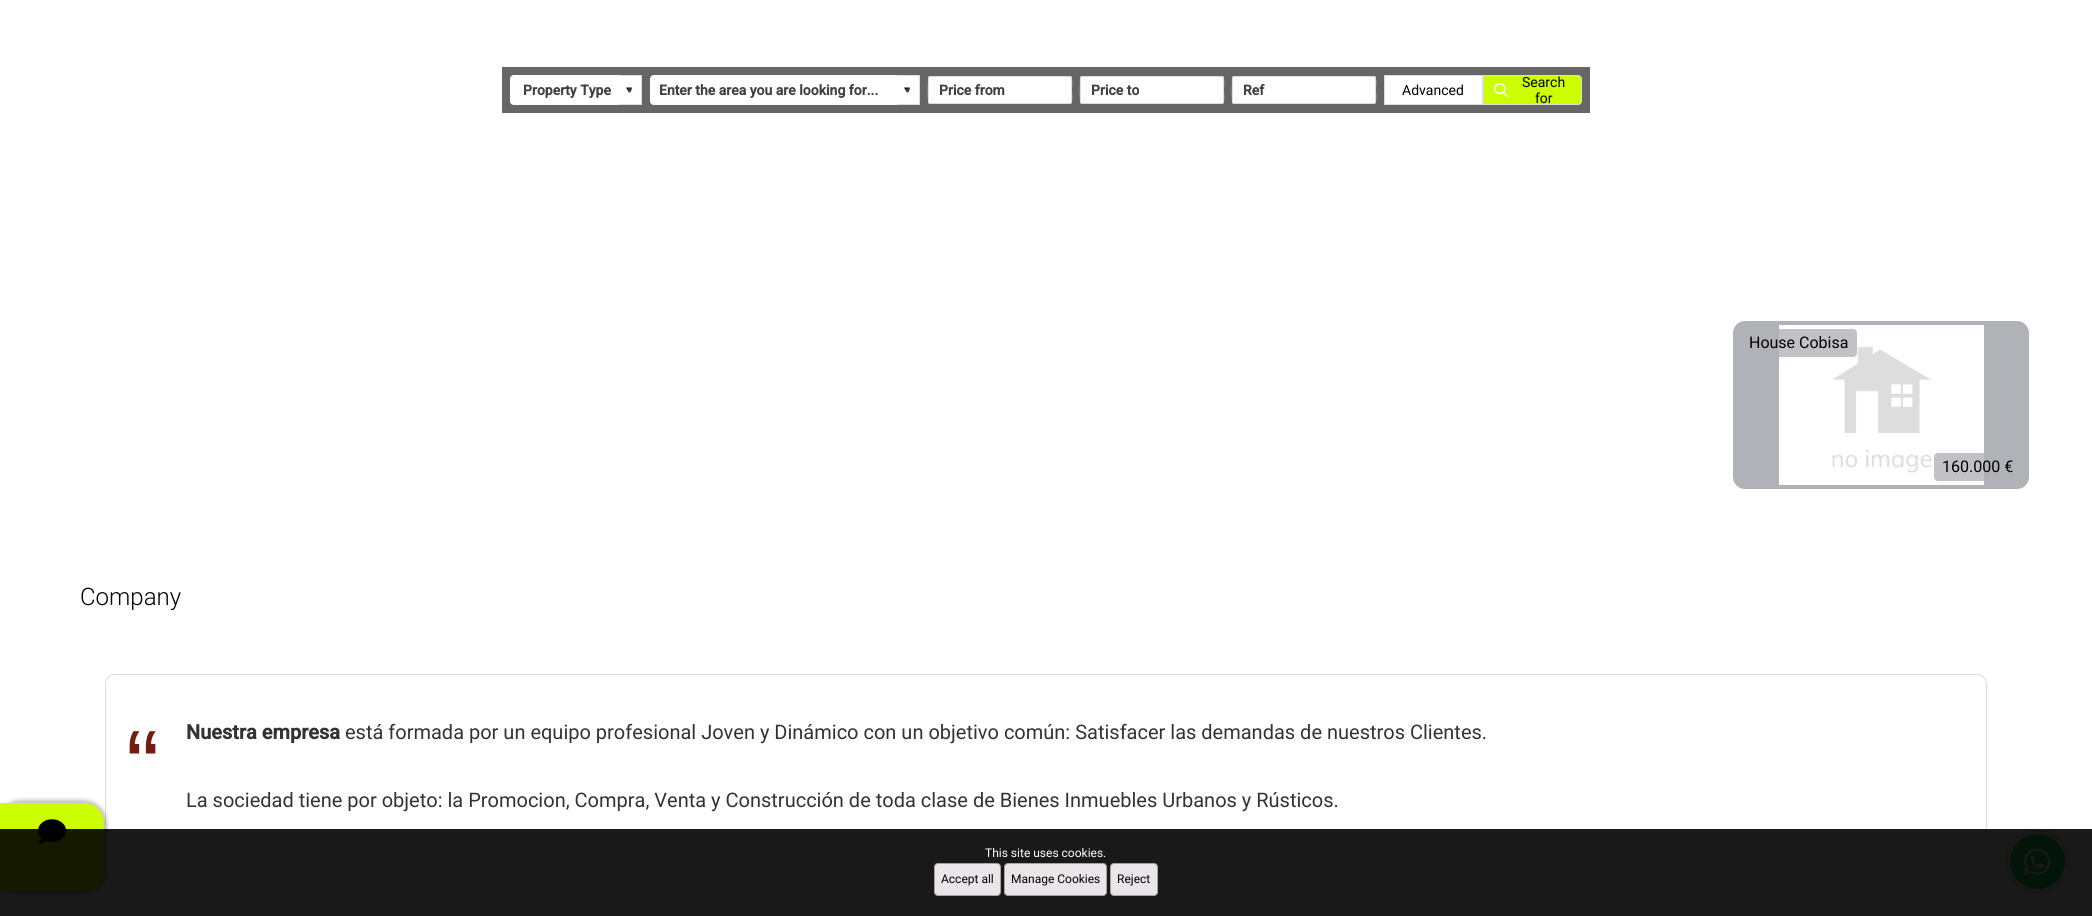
#include <cairo.h>
#include <math.h>
#include <stddef.h>


static void rgb(cairo_t *cr, int r, int g, int b)
{
	cairo_set_source_rgb(cr, r / 255.0, g / 255.0, b / 255.0);
}

static void face(cairo_t *cr, const char *family, double size, int italic, int bold)
{
	cairo_select_font_face(cr, family, italic ? CAIRO_FONT_SLANT_ITALIC : CAIRO_FONT_SLANT_NORMAL,
		bold ? CAIRO_FONT_WEIGHT_BOLD : CAIRO_FONT_WEIGHT_NORMAL);
	cairo_set_font_size(cr, size);
}

static void label(cairo_t *cr, double x, double y, const char *s)
{
	cairo_move_to(cr, x, y);
	cairo_show_text(cr, s);
}

static void rect(cairo_t *cr, double x, double y, double w, double h)
{
	cairo_rectangle(cr, x, y, w, h);
	cairo_fill(cr);
}

static void rrect(cairo_t *cr, double x, double y, double w, double h, double r)
{
	cairo_new_sub_path(cr);
	cairo_arc(cr, x + w - r, y + h - r, r, 0, M_PI / 2);
	cairo_arc(cr, x + r, y + h - r, r, M_PI / 2, M_PI);
	cairo_arc(cr, x + r, y + r, r, M_PI, 1.5 * M_PI);
	cairo_arc(cr, x + w - r, y + r, r, 1.5 * M_PI, 2 * M_PI);
	cairo_close_path(cr);
}

static void soft_shadow(cairo_t *cr, double x, double y, double w, double h, double r, double blur, double alpha)
{
	cairo_push_group_with_content(cr, CAIRO_CONTENT_ALPHA);
	cairo_set_operator(cr, CAIRO_OPERATOR_SOURCE);
	for (int i = 15; i >= -15 && fmin(w, h) + blur * i / 3 > 0; i -= 2) {
		double e = blur * i / 6;
		cairo_set_source_rgba(cr, 0, 0, 0, alpha * erfc((i - 1) / 8.5) / 2);
		rrect(cr, x - e, y - e, w + 2 * e, h + 2 * e, fmax(0, fmin(r + e + blur * .6, fmin(w, h) / 2 + e)));
		cairo_fill(cr);
	}
	cairo_pattern_t *soft = cairo_pop_group(cr);
	cairo_mask(cr, soft);
	cairo_pattern_destroy(soft);
}

static void image(cairo_t *cr, const char *path, double x, double y, double w, double h)
{
	cairo_surface_t *image = cairo_image_surface_create_from_png(path);
	cairo_save(cr);
	cairo_set_source_surface(cr, image, x, y);
	cairo_rectangle(cr, x, y, w, h);
	cairo_fill(cr);
	cairo_restore(cr);
	cairo_surface_destroy(image);
}

static void draw(cairo_t *cr) {
	rgb(cr, 255, 255, 255);
	cairo_paint(cr);
	rgb(cr, 102, 102, 102);
	rect(cr, 502, 67, 1088, 46);
	rgb(cr, 255, 255, 255);
	rrect(cr, 510, 75, 132, 30, 4);
	cairo_fill(cr);
	face(cr, "Roboto", 14, 0, 1);
	rgb(cr, 64, 67, 69);
	label(cr, 523, 95, "Property Type");
	rgb(cr, 255, 255, 255);
	rect(cr, 640, 76, 1, 28);
	rgb(cr, 0, 0, 0);
	cairo_new_path(cr);
	cairo_move_to(cr, 629, 92.5);
	cairo_line_to(cr, 626, 87.5);
	cairo_line_to(cr, 632, 87.5);
	cairo_close_path(cr);
	cairo_fill(cr);
	rgb(cr, 221, 221, 221);
	rect(cr, 619, 75, 23, 1);
	rect(cr, 641, 75, 1, 30);
	rect(cr, 619, 104, 23, 1);
	face(cr, "Liberation Sans", 8, 0, 1);
	rgb(cr, 64, 67, 69);
	label(cr, 626, 93, "▼");
	rgb(cr, 255, 255, 255);
	rrect(cr, 650.5, 75.5, 269, 29, 3.5);
	cairo_fill_preserve(cr);
	cairo_set_line_width(cr, 1);
	cairo_stroke(cr);
	face(cr, "Roboto", 14, 0, 1);
	rgb(cr, 64, 67, 69);
	label(cr, 659, 95, "Enter the area you are looking for...");
	rgb(cr, 0, 0, 0);
	cairo_new_path(cr);
	cairo_move_to(cr, 907, 92.5);
	cairo_line_to(cr, 904, 87.5);
	cairo_line_to(cr, 910, 87.5);
	cairo_close_path(cr);
	cairo_fill(cr);
	rgb(cr, 221, 221, 221);
	rect(cr, 897, 75, 23, 1);
	rect(cr, 919, 75, 1, 30);
	rect(cr, 897, 104, 23, 1);
	face(cr, "Liberation Sans", 8, 0, 1);
	rgb(cr, 64, 67, 69);
	label(cr, 904, 93, "▼");
	cairo_save(cr);
	rrect(cr, 928, 75, 144, 30, 4);
	cairo_clip(cr);
	rgb(cr, 255, 255, 255);
	rect(cr, 928, 76, 144, 28);
	cairo_restore(cr);
	rgb(cr, 221, 221, 221);
	cairo_set_fill_rule(cr, CAIRO_FILL_RULE_EVEN_ODD);
	cairo_new_path(cr);
	cairo_move_to(cr, 928, 79);
	cairo_curve_to(cr, 928, 83, 927, 102, 929, 104);
	cairo_line_to(cr, 1071, 104);
	cairo_curve_to(cr, 1073, 102, 1072, 93, 1072, 90);
	cairo_curve_to(cr, 1072, 87, 1073, 78, 1071, 76);
	cairo_line_to(cr, 929, 76);
	cairo_curve_to(cr, 929, 77, 928, 78, 928, 79);
	cairo_close_path(cr);
	cairo_move_to(cr, 929, 77);
	cairo_line_to(cr, 929, 103);
	cairo_line_to(cr, 1071, 103);
	cairo_line_to(cr, 1071, 77);
	cairo_close_path(cr);
	cairo_fill(cr);
	face(cr, "Roboto", 14, 0, 1);
	rgb(cr, 64, 67, 69);
	label(cr, 939, 95, "Price from");
	cairo_save(cr);
	cairo_set_fill_rule(cr, CAIRO_FILL_RULE_WINDING);
	rrect(cr, 1080, 75, 144, 30, 4);
	cairo_clip(cr);
	rgb(cr, 255, 255, 255);
	rect(cr, 1080, 76, 144, 28);
	cairo_restore(cr);
	rgb(cr, 221, 221, 221);
	cairo_new_path(cr);
	cairo_move_to(cr, 1080, 79);
	cairo_curve_to(cr, 1080, 83, 1079, 102, 1081, 104);
	cairo_line_to(cr, 1223, 104);
	cairo_curve_to(cr, 1225, 102, 1224, 93, 1224, 90);
	cairo_curve_to(cr, 1224, 87, 1225, 78, 1223, 76);
	cairo_line_to(cr, 1081, 76);
	cairo_curve_to(cr, 1081, 77, 1080, 78, 1080, 79);
	cairo_close_path(cr);
	cairo_move_to(cr, 1081, 77);
	cairo_line_to(cr, 1081, 103);
	cairo_line_to(cr, 1223, 103);
	cairo_line_to(cr, 1223, 77);
	cairo_close_path(cr);
	cairo_fill(cr);
	rgb(cr, 64, 67, 69);
	label(cr, 1091, 95, "Price to");
	cairo_save(cr);
	cairo_set_fill_rule(cr, CAIRO_FILL_RULE_WINDING);
	rrect(cr, 1232, 75, 144, 30, 4);
	cairo_clip(cr);
	rgb(cr, 255, 255, 255);
	rect(cr, 1232, 76, 144, 28);
	cairo_restore(cr);
	rgb(cr, 221, 221, 221);
	cairo_new_path(cr);
	cairo_move_to(cr, 1232, 79);
	cairo_curve_to(cr, 1232, 83, 1231, 102, 1233, 104);
	cairo_line_to(cr, 1375, 104);
	cairo_curve_to(cr, 1377, 102, 1376, 93, 1376, 90);
	cairo_curve_to(cr, 1376, 87, 1377, 78, 1375, 76);
	cairo_line_to(cr, 1233, 76);
	cairo_curve_to(cr, 1233, 77, 1232, 78, 1232, 79);
	cairo_close_path(cr);
	cairo_move_to(cr, 1233, 77);
	cairo_line_to(cr, 1233, 103);
	cairo_line_to(cr, 1375, 103);
	cairo_line_to(cr, 1375, 77);
	cairo_close_path(cr);
	cairo_fill(cr);
	rgb(cr, 64, 67, 69);
	label(cr, 1243, 95, "Ref");
	rgb(cr, 255, 255, 255);
	cairo_rectangle(cr, 1384.5, 75.5, 98, 29);
	cairo_fill_preserve(cr);
	rgb(cr, 221, 221, 221);
	cairo_stroke(cr);
	face(cr, "Roboto", 14, 0, 0);
	rgb(cr, 0, 0, 0);
	label(cr, 1402, 95, "Advanced");
	rgb(cr, 204, 255, 0);
	cairo_new_path(cr);
	cairo_move_to(cr, 1483.5, 75.5);
	cairo_line_to(cr, 1578, 75.5);
	cairo_curve_to(cr, 1580, 75.5, 1581.5, 77, 1581.5, 79);
	cairo_line_to(cr, 1581.5, 101);
	cairo_curve_to(cr, 1581.5, 103, 1580, 104.5, 1578, 104.5);
	cairo_line_to(cr, 1483.5, 104.5);
	cairo_close_path(cr);
	cairo_fill_preserve(cr);
	rgb(cr, 221, 221, 221);
	cairo_stroke(cr);
	image(cr, "image0.png", 1494, 83, 14, 14);
	rgb(cr, 0, 0, 0);
	label(cr, 1522, 87, "Search");
	label(cr, 1535, 103, "for");
	rgb(cr, 177, 177, 184);
	rrect(cr, 1733, 321, 296, 168, 12);
	cairo_fill(cr);
	image(cr, "image1.png", 1779, 325, 205, 160);
	cairo_set_source_rgba(cr, 0.694, 0.694, 0.722, 0.8);
	rrect(cr, 1741, 329, 116, 28, 4);
	cairo_fill(cr);
	face(cr, "Roboto", 16, 0, 0);
	rgb(cr, 0, 0, 0);
	label(cr, 1749, 348, "House Cobisa");
	cairo_set_source_rgba(cr, 0.694, 0.694, 0.722, 0.8);
	rrect(cr, 1934, 453, 87, 28, 4);
	cairo_fill(cr);
	rgb(cr, 0, 0, 0);
	label(cr, 1942, 472, "160.000 €");
	face(cr, "Roboto Light", 24, 0, 0);
	label(cr, 80, 605, "Company");
	rrect(cr, 105.5, 674.5, 1881, 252, 9.5);
	rgb(cr, 221, 221, 221);
	cairo_stroke(cr);
	face(cr, "Liberation Sans", 100, 0, 0);
	rgb(cr, 118, 27, 17);
	label(cr, 126, 800, "“");
	face(cr, "Roboto", 20, 0, 1);
	rgb(cr, 51, 51, 51);
	label(cr, 186, 739, "Nuestra empresa");
	face(cr, "Roboto", 20, 0, 0);
	label(cr, 345, 739, "está formada por un equipo profesional Joven y Dinámico con un objetivo común: Satisfacer las demandas de nuestros Clientes.");
	label(cr, 186, 807, "La sociedad tiene por objeto: la Promocion, Compra, Venta y Construcción de toda clase de Bienes Inmuebles Urbanos y Rústicos.");
	rgb(cr, 0, 0, 0);
	soft_shadow(cr, -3, 800, 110, 94, 23, 2, 0.25);
	rgb(cr, 204, 255, 0);
	cairo_new_path(cr);
	cairo_move_to(cr, 0, 803);
	cairo_line_to(cr, 84, 803);
	cairo_curve_to(cr, 95, 803, 104, 812, 104, 823);
	cairo_line_to(cr, 104, 871);
	cairo_curve_to(cr, 104, 882, 95, 891, 84, 891);
	cairo_line_to(cr, 0, 891);
	cairo_close_path(cr);
	cairo_fill(cr);
	image(cr, "image2.png", 38, 819, 29, 25);
	rgb(cr, 0, 0, 0);
	soft_shadow(cr, 2007, 831, 61, 61, 30.5, 2, 0.22);
	rgb(cr, 31, 199, 94);
	cairo_arc(cr, 2037.5, 861.5, 28.5, 0, 2 * M_PI);
	cairo_fill_preserve(cr);
	rgb(cr, 255, 255, 255);
	cairo_set_line_width(cr, 2);
	cairo_stroke(cr);
	image(cr, "image3.png", 2024, 848, 27, 27);
	cairo_set_source_rgba(cr, 0, 0, 0, 0.9);
	rect(cr, 0, 829, 2092, 87);
	face(cr, "Roboto", 12, 0, 0);
	rgb(cr, 255, 255, 255);
	label(cr, 985, 857, "This site uses cookies.");
	rgb(cr, 233, 229, 233);
	rrect(cr, 934.5, 863.5, 66, 32, 3.5);
	cairo_fill_preserve(cr);
	rgb(cr, 161, 165, 159);
	cairo_set_line_width(cr, 1);
	cairo_stroke(cr);
	rgb(cr, 0, 0, 0);
	label(cr, 941, 883, "Accept all");
	rgb(cr, 233, 229, 233);
	rrect(cr, 1004.5, 863.5, 102, 32, 3.5);
	cairo_fill_preserve(cr);
	rgb(cr, 161, 165, 159);
	cairo_stroke(cr);
	rgb(cr, 0, 0, 0);
	label(cr, 1011, 883, "Manage Cookies");
	rgb(cr, 233, 229, 233);
	rrect(cr, 1110.5, 863.5, 47, 32, 3.5);
	cairo_fill_preserve(cr);
	rgb(cr, 161, 165, 159);
	cairo_stroke(cr);
	rgb(cr, 0, 0, 0);
	label(cr, 1117, 883, "Reject");
}

int main(void) {
	cairo_surface_t *surface = cairo_image_surface_create(CAIRO_FORMAT_RGB24, 2092, 916);
	cairo_t *cr = cairo_create(surface);
	cairo_font_options_t *options = cairo_font_options_create();
	cairo_font_options_set_hint_metrics(options, CAIRO_HINT_METRICS_OFF);
	cairo_font_options_set_hint_style(options, CAIRO_HINT_STYLE_NONE);
	cairo_set_font_options(cr, options);
	cairo_set_miter_limit(cr, 4);
	draw(cr);
	cairo_surface_write_to_png(surface, "render.png");
	cairo_font_options_destroy(options);
	cairo_destroy(cr);
	cairo_surface_destroy(surface);
	return 0;
}
